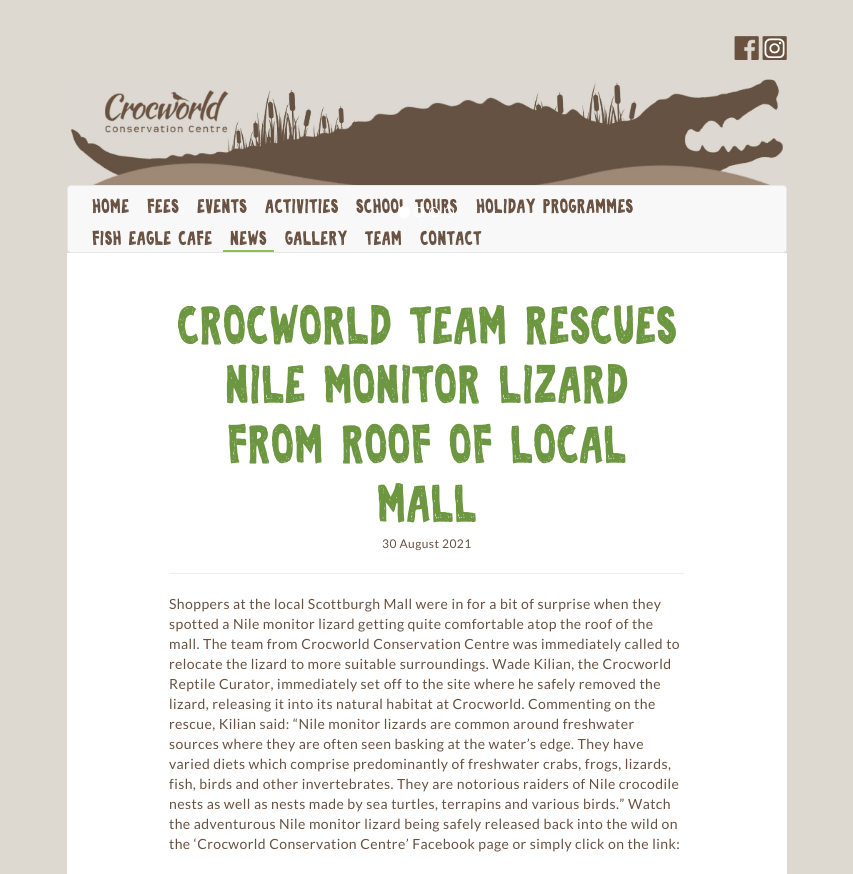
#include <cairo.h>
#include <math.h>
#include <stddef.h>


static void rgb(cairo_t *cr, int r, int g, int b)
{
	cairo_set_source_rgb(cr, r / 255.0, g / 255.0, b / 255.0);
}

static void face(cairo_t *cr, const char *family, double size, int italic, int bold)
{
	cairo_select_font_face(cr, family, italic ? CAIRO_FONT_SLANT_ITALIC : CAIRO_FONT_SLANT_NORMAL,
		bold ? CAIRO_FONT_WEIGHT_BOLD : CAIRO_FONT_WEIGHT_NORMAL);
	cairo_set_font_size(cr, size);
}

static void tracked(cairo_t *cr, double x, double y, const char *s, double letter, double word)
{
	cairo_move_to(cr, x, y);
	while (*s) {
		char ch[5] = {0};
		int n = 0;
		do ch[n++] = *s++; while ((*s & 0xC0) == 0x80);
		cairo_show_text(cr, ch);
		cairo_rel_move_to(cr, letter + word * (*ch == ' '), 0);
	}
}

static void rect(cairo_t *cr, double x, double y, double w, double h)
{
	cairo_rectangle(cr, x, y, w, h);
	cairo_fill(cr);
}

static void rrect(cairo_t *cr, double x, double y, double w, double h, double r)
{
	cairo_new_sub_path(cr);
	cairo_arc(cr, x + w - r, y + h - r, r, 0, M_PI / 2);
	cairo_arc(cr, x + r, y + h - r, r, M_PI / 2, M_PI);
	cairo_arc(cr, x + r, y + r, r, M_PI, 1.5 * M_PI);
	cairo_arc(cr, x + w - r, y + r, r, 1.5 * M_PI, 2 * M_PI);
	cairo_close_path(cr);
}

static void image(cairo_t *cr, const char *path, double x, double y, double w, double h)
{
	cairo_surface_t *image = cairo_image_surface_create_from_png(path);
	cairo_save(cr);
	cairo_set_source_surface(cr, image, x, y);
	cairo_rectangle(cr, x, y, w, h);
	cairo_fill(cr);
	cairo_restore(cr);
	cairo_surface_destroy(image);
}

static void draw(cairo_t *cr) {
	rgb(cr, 221, 216, 208);
	cairo_paint(cr);
	image(cr, "image0.png", 734, 36, 25, 24);
	image(cr, "image1.png", 762, 36, 25, 24);
	image(cr, "image2.png", 70, 79, 714, 106);
	rgb(cr, 248, 248, 248);
	rrect(cr, 67.5, 185.5, 719, 67, 3.5);
	cairo_fill_preserve(cr);
	rgb(cr, 231, 231, 231);
	cairo_set_line_width(cr, 1);
	cairo_stroke(cr);
	face(cr, "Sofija", 20, 0, 0);
	rgb(cr, 105, 81, 65);
	tracked(cr, 92, 213, "HOME", 0.42, 0);
	tracked(cr, 147, 213, "FEES", 0.42, 0);
	tracked(cr, 197, 213, "EVENTS", 0.42, 0);
	tracked(cr, 265, 213, "ACTIVITIES", 0.42, 0);
	tracked(cr, 356, 213, "SCHOOL TOURS", 0.42, 0);
	tracked(cr, 476, 213, "HOLIDAY PROGRAMMES", 0.42, 0);
	tracked(cr, 92, 245, "FISH EAGLE CAFE", 0.42, 0);
	rgb(cr, 139, 193, 83);
	rect(cr, 223, 250, 51, 2);
	rgb(cr, 105, 81, 65);
	tracked(cr, 230, 245, "NEWS", 0.42, 0);
	tracked(cr, 285, 245, "GALLERY", 0.42, 0);
	tracked(cr, 365, 245, "TEAM", 0.42, 0);
	tracked(cr, 420, 245, "CONTACT", 0.42, 0);
	rgb(cr, 255, 255, 255);
	cairo_new_path(cr);
	cairo_arc(cr, 404, 212, 5.5, 0, 2 * M_PI);
	cairo_fill_preserve(cr);
	cairo_stroke(cr);
	cairo_arc(cr, 419, 212, 4.5, 0, 2 * M_PI);
	cairo_stroke(cr);
	cairo_arc(cr, 434, 212, 4.5, 0, 2 * M_PI);
	cairo_stroke(cr);
	cairo_arc(cr, 449, 212, 4.5, 0, 2 * M_PI);
	cairo_stroke(cr);
	rect(cr, 67, 253, 720, 621);
	face(cr, "Sofija", 54, 0, 0);
	rgb(cr, 108, 150, 64);
	tracked(cr, 177, 344, "Crocworld Team Rescues", 0.42, 0);
	tracked(cr, 225, 403, "Nile Monitor Lizard", 0.42, 0);
	tracked(cr, 227, 463, "from Roof of Local", 0.42, 0);
	tracked(cr, 377, 522, "Mall", 0.42, 0);
	face(cr, "Lato", 12, 0, 0);
	rgb(cr, 105, 81, 65);
	tracked(cr, 382, 548, "30 August 2021", 0.42, 0);
	rgb(cr, 238, 238, 238);
	rect(cr, 169, 573, 515, 1);
	face(cr, "Lato", 14, 0, 0);
	rgb(cr, 105, 81, 65);
	tracked(cr, 169, 609, "Shoppers at the local Scottburgh Mall were in for a bit of surprise when they", 0.42, 0);
	tracked(cr, 169, 629, "spotted a Nile monitor lizard getting quite comfortable atop the roof of the", 0.42, 0);
	tracked(cr, 169, 649, "mall. The team from Crocworld Conservation Centre was immediately called to", 0.42, 0);
	tracked(cr, 169, 669, "relocate the lizard to more suitable surroundings. Wade Kilian, the Crocworld", 0.42, 0);
	tracked(cr, 169, 689, "Reptile Curator, immediately set off to the site where he safely removed the", 0.42, 0);
	tracked(cr, 169, 709, "lizard, releasing it into its natural habitat at Crocworld. Commenting on the", 0.42, 0);
	tracked(cr, 169, 729, "rescue, Kilian said: “Nile monitor lizards are common around freshwater", 0.42, 0);
	tracked(cr, 169, 749, "sources where they are often seen basking at the water’s edge. They have", 0.42, 0);
	tracked(cr, 169, 769, "varied diets which comprise predominantly of freshwater crabs, frogs, lizards,", 0.42, 0);
	tracked(cr, 169, 789, "fish, birds and other invertebrates. They are notorious raiders of Nile crocodile", 0.42, 0);
	tracked(cr, 169, 809, "nests as well as nests made by sea turtles, terrapins and various birds.” Watch", 0.42, 0);
	tracked(cr, 169, 829, "the adventurous Nile monitor lizard being safely released back into the wild on", 0.42, 0);
	tracked(cr, 169, 849, "the ‘Crocworld Conservation Centre’ Facebook page or simply click on the link:", 0.42, 0);
}

int main(void) {
	cairo_surface_t *surface = cairo_image_surface_create(CAIRO_FORMAT_RGB24, 853, 874);
	cairo_t *cr = cairo_create(surface);
	cairo_font_options_t *options = cairo_font_options_create();
	cairo_font_options_set_hint_metrics(options, CAIRO_HINT_METRICS_OFF);
	cairo_font_options_set_hint_style(options, CAIRO_HINT_STYLE_NONE);
	cairo_set_font_options(cr, options);
	cairo_set_miter_limit(cr, 4);
	draw(cr);
	cairo_surface_write_to_png(surface, "render.png");
	cairo_font_options_destroy(options);
	cairo_destroy(cr);
	cairo_surface_destroy(surface);
	return 0;
}
